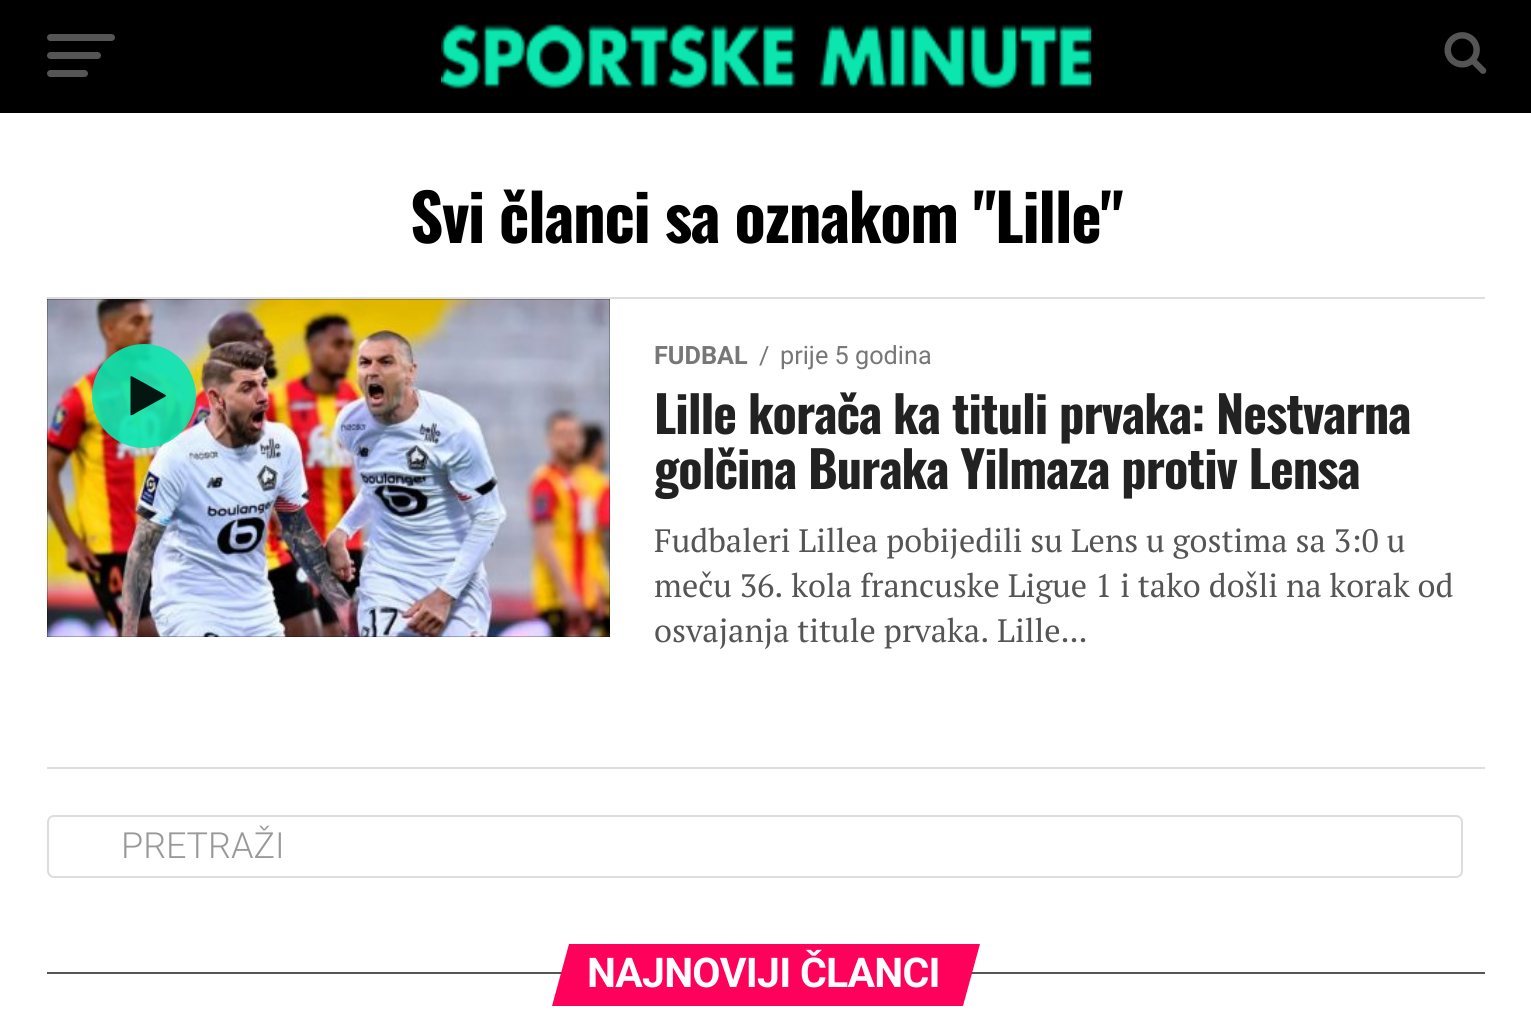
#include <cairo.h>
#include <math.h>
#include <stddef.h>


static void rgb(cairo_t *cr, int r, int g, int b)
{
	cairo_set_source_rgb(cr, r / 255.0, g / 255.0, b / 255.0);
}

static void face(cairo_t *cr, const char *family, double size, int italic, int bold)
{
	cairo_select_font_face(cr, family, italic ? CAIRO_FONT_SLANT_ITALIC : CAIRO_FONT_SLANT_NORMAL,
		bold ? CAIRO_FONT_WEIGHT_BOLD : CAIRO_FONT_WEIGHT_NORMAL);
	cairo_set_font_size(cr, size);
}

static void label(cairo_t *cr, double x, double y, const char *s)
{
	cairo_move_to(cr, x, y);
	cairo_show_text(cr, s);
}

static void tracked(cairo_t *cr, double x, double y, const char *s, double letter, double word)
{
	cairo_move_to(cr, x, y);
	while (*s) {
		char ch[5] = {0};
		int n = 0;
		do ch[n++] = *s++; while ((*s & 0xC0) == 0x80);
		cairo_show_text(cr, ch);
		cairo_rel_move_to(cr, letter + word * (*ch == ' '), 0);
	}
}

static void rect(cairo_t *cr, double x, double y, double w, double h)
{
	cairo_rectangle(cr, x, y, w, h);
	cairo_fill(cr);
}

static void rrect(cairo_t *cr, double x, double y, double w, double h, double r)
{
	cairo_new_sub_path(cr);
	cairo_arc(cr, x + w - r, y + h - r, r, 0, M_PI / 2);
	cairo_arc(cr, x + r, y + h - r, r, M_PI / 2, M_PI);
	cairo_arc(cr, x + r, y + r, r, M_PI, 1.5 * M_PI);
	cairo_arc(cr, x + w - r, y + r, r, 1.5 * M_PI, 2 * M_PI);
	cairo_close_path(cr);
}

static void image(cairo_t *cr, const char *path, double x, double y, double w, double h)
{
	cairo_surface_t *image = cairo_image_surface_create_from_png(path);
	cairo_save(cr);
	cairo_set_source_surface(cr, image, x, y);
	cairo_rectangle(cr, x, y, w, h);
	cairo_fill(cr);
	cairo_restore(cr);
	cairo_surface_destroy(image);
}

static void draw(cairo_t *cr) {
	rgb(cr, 255, 255, 255);
	cairo_paint(cr);
	rgb(cr, 0, 0, 0);
	rect(cr, 0, 0, 1531, 113);
	rgb(cr, 85, 85, 85);
	rrect(cr, 47, 34, 68, 7, 3.5);
	cairo_fill(cr);
	rrect(cr, 47, 52, 54, 7, 3.5);
	cairo_fill(cr);
	rrect(cr, 47, 70, 41, 7, 3.5);
	cairo_fill(cr);
	image(cr, "image0.png", 441, 24, 651, 65);
	image(cr, "image1.png", 1444, 32, 43, 42);
	face(cr, "Oswald", 64.75, 0, 1);
	rgb(cr, 0, 0, 0);
	tracked(cr, 410, 243, "Svi članci sa oznakom \"Lille\"", -1.3, 0);
	rgb(cr, 221, 221, 221);
	rect(cr, 47, 297, 1438, 2);
	rgb(cr, 0, 0, 0);
	rect(cr, 47, 299, 563, 338);
	image(cr, "image2.png", 47, 299, 563, 338);
	cairo_set_source_rgba(cr, 0.043, 0.902, 0.686, 0.9);
	cairo_arc(cr, 144, 396, 52, 0, 2 * M_PI);
	cairo_fill(cr);
	cairo_set_source_rgba(cr, 0, 0, 0, 0.9);
	cairo_new_path(cr);
	cairo_move_to(cr, 165.5, 396.5);
	cairo_line_to(cr, 137.5, 412);
	cairo_curve_to(cr, 137, 412, 131.5, 416.5, 130.5, 415);
	cairo_line_to(cr, 130.5, 377);
	cairo_line_to(cr, 131, 376);
	cairo_curve_to(cr, 132, 376, 152, 387.5, 154, 388.5);
	cairo_line_to(cr, 165.5, 395);
	cairo_line_to(cr, 166, 395.5);
	cairo_close_path(cr);
	cairo_fill(cr);
	face(cr, "Roboto", 25.25, 0, 1);
	rgb(cr, 119, 119, 119);
	label(cr, 654, 364, "FUDBAL");
	face(cr, "Roboto", 25.25, 0, 0);
	label(cr, 759, 364, "/");
	label(cr, 780, 364, "prije 5 godina");
	face(cr, "Oswald", 50.4, 0, 1);
	rgb(cr, 34, 34, 34);
	tracked(cr, 654, 434, "Lille korača ka tituli prvaka: Nestvarna", -1, 0);
	tracked(cr, 654, 489, "golčina Buraka Yilmaza protiv Lensa", -1, 0);
	face(cr, "PT Serif", 32.4, 0, 0);
	rgb(cr, 85, 85, 85);
	label(cr, 654, 552, "Fudbaleri Lillea pobijedili su Lens u gostima sa 3:0 u");
	label(cr, 654, 597, "meču 36. kola francuske Ligue 1 i tako došli na korak od");
	label(cr, 654, 642, "osvajanja titule prvaka. Lille...");
	rgb(cr, 221, 221, 221);
	rect(cr, 47, 767, 1438, 2);
	rrect(cr, 48, 816, 1414, 61, 6);
	cairo_stroke(cr);
	face(cr, "Roboto Light", 36, 0, 0);
	rgb(cr, 153, 153, 153);
	label(cr, 121, 858, "PRETRAŽI");
	rgb(cr, 85, 85, 85);
	rect(cr, 47, 972, 1438, 2);
	rgb(cr, 255, 0, 91);
	cairo_new_path(cr);
	cairo_move_to(cr, 569, 944);
	cairo_line_to(cr, 980, 944);
	cairo_line_to(cr, 963, 1006);
	cairo_line_to(cr, 552, 1006);
	cairo_close_path(cr);
	cairo_fill(cr);
	face(cr, "Roboto", 41, 0, 1);
	rgb(cr, 255, 255, 255);
	tracked(cr, 587, 987, "NAJNOVIJI ČLANCI", -0.75, 0);
}

int main(void) {
	cairo_surface_t *surface = cairo_image_surface_create(CAIRO_FORMAT_RGB24, 1531, 1018);
	cairo_t *cr = cairo_create(surface);
	cairo_font_options_t *options = cairo_font_options_create();
	cairo_font_options_set_hint_metrics(options, CAIRO_HINT_METRICS_OFF);
	cairo_font_options_set_hint_style(options, CAIRO_HINT_STYLE_NONE);
	cairo_set_font_options(cr, options);
	cairo_set_miter_limit(cr, 4);
	draw(cr);
	cairo_surface_write_to_png(surface, "render.png");
	cairo_font_options_destroy(options);
	cairo_destroy(cr);
	cairo_surface_destroy(surface);
	return 0;
}
